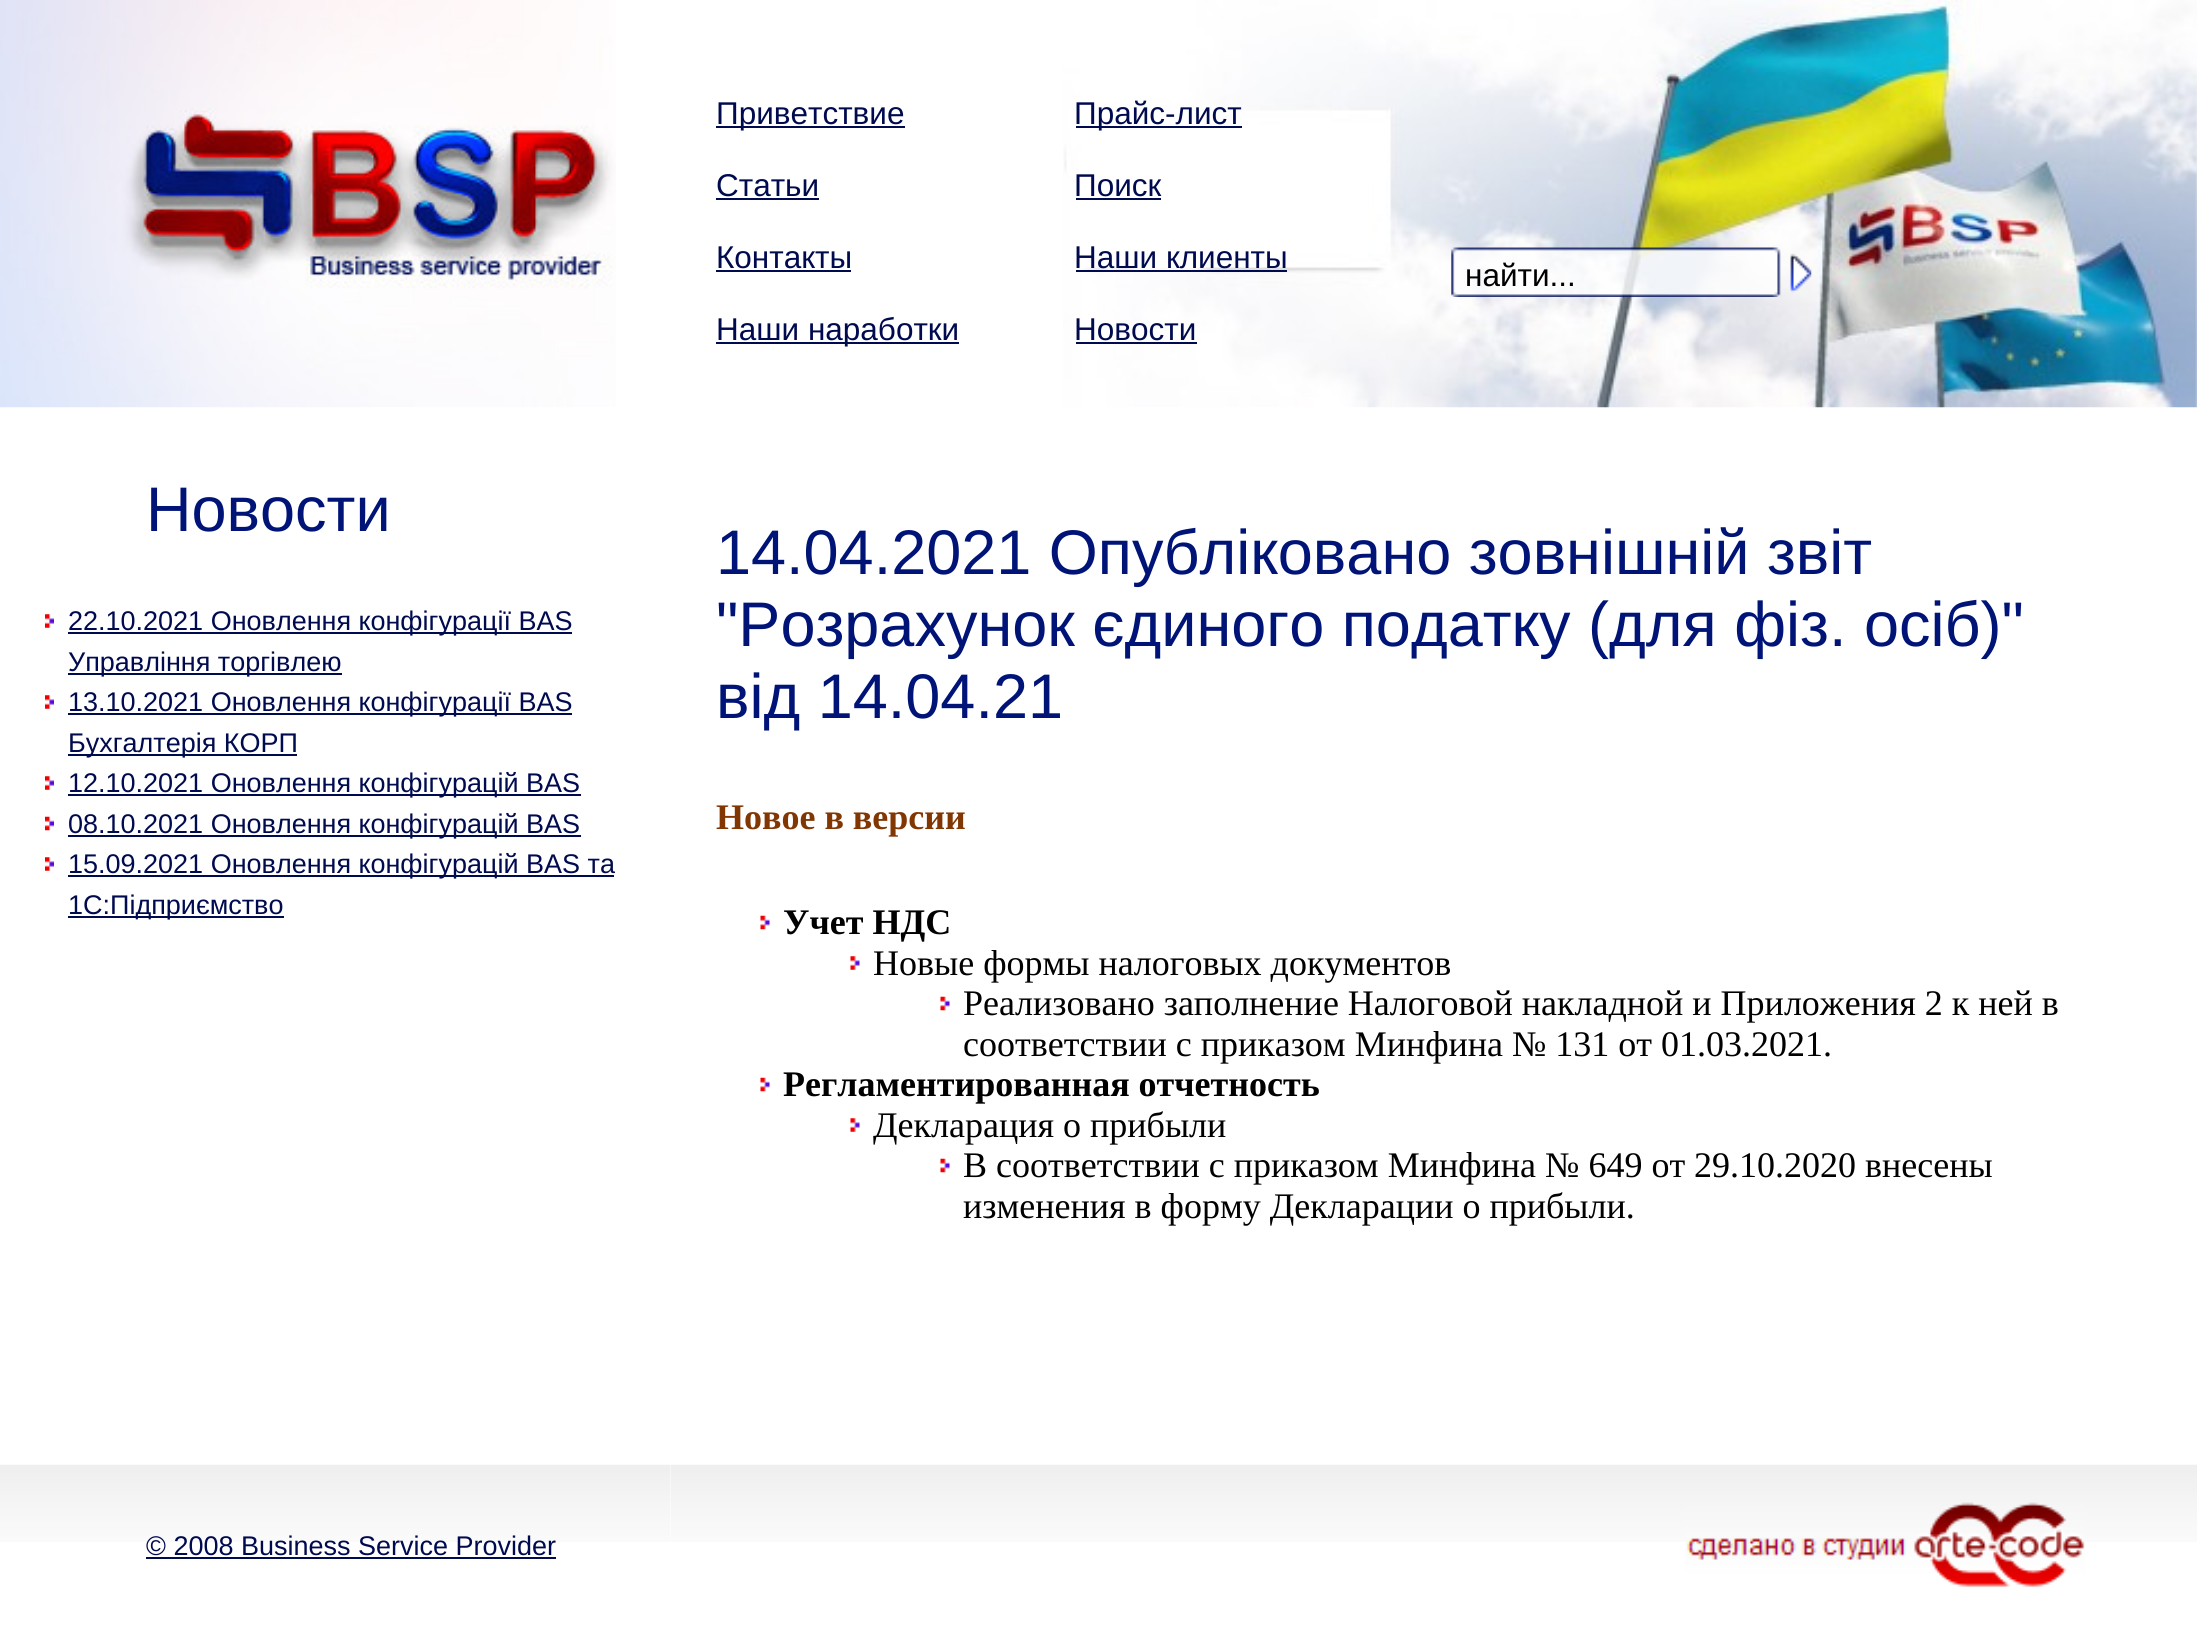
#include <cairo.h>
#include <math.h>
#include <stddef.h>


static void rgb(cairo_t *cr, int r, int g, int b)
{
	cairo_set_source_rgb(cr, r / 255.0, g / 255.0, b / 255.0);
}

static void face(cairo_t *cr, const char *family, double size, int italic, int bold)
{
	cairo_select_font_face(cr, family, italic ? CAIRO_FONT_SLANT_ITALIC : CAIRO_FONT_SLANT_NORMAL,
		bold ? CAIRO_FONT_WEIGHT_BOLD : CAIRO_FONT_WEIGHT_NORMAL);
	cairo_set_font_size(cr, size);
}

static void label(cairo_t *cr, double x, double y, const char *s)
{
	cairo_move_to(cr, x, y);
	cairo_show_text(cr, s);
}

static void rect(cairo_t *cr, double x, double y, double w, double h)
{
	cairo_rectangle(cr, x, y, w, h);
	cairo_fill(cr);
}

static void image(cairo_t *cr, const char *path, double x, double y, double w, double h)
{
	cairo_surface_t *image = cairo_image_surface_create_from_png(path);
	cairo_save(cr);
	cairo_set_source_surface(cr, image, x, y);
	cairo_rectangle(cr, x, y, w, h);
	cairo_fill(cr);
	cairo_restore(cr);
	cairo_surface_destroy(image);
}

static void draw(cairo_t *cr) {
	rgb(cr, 255, 255, 255);
	cairo_paint(cr);
	image(cr, "image0.png", 0, 0, 616, 408);
	face(cr, "Liberation Sans", 63, 0, 0);
	rgb(cr, 0, 20, 120);
	label(cr, 146, 531, "Новости");
	image(cr, "image1.png", 45, 614, 9, 14);
	rgb(cr, 0, 10, 79);
	rect(cr, 68, 632, 504, 2);
	face(cr, "Liberation Sans", 27, 0, 0);
	label(cr, 68, 630, "22.10.2021 Оновлення конфігурації BAS");
	rect(cr, 68, 673, 274, 2);
	label(cr, 68, 671, "Управління торгівлею");
	image(cr, "image1.png", 45, 695, 9, 14);
	rect(cr, 68, 713, 504, 2);
	label(cr, 68, 711, "13.10.2021 Оновлення конфігурації BAS");
	rect(cr, 68, 754, 229, 2);
	label(cr, 68, 752, "Бухгалтерія КОРП");
	image(cr, "image1.png", 45, 776, 9, 14);
	rect(cr, 68, 794, 513, 2);
	label(cr, 68, 792, "12.10.2021 Оновлення конфігурацій BAS");
	image(cr, "image2.png", 45, 816, 9, 15);
	rect(cr, 68, 835, 513, 2);
	label(cr, 68, 833, "08.10.2021 Оновлення конфігурацій BAS");
	image(cr, "image1.png", 45, 857, 9, 14);
	rect(cr, 68, 875, 546, 2);
	label(cr, 68, 873, "15.09.2021 Оновлення конфігурацій BAS та");
	rect(cr, 68, 916, 216, 2);
	label(cr, 68, 914, "1С:Підприємство");
	image(cr, "image3.png", 1063, 0, 1134, 408);
	rect(cr, 716, 126, 189, 2);
	face(cr, "Liberation Sans", 31.5, 0, 0);
	label(cr, 716, 124, "Приветствие");
	rect(cr, 1076, 126, 166, 2);
	label(cr, 1074, 124, "Прайс-лист");
	label(cr, 716, 196, "Статьи");
	rect(cr, 716, 198, 103, 2);
	label(cr, 1074, 196, "Поиск");
	rect(cr, 1076, 198, 85, 2);
	label(cr, 716, 268, "Контакты");
	rect(cr, 716, 270, 135, 2);
	label(cr, 1074, 268, "Наши клиенты");
	rect(cr, 1076, 270, 211, 2);
	rect(cr, 716, 342, 243, 2);
	label(cr, 716, 340, "Наши наработки");
	label(cr, 1074, 340, "Новости");
	rect(cr, 1076, 342, 121, 2);
	image(cr, "image4.png", 1451, 247, 361, 50);
	rgb(cr, 0, 0, 0);
	label(cr, 1465, 286, "найти...");
	face(cr, "Liberation Sans", 63, 0, 0);
	rgb(cr, 0, 20, 120);
	label(cr, 716, 574, "14.04.2021 Опубліковано зовнішній звіт");
	label(cr, 716, 646, "\"Розрахунок єдиного податку (для фіз. осіб)\"");
	label(cr, 716, 718, "від 14.04.21");
	face(cr, "Liberation Serif", 36, 0, 1);
	rgb(cr, 130, 54, 2);
	label(cr, 716, 829, "Новое в версии");
	image(cr, "image5.png", 760, 915, 10, 15);
	rgb(cr, 0, 0, 0);
	label(cr, 783, 934, "Учет НДС");
	image(cr, "image6.png", 850, 956, 10, 14);
	face(cr, "Liberation Serif", 36, 0, 0);
	label(cr, 873, 975, "Новые формы налоговых документов");
	image(cr, "image5.png", 940, 996, 10, 15);
	label(cr, 963, 1015, "Реализовано заполнение Налоговой накладной и Приложения 2 к ней в");
	label(cr, 963, 1056, "соответствии с приказом Минфина № 131 от 01.03.2021.");
	image(cr, "image5.png", 760, 1077, 10, 15);
	face(cr, "Liberation Serif", 36, 0, 1);
	label(cr, 783, 1096, "Регламентированная отчетность");
	image(cr, "image6.png", 850, 1118, 10, 14);
	face(cr, "Liberation Serif", 36, 0, 0);
	label(cr, 873, 1137, "Декларация о прибыли");
	image(cr, "image5.png", 940, 1158, 10, 15);
	label(cr, 963, 1177, "В соответствии с приказом Минфина № 649 от 29.10.2020 внесены");
	label(cr, 963, 1218, "изменения в форму Декларации о прибыли.");
	image(cr, "image7.png", 0, 1464, 671, 78);
	face(cr, "Liberation Sans", 27, 0, 0);
	rgb(cr, 0, 10, 79);
	label(cr, 146, 1555, "© 2008 Business Service Provider");
	rect(cr, 146, 1557, 410, 2);
	image(cr, "image8.png", 671, 1464, 1526, 78);
	image(cr, "image9.png", 1685, 1502, 400, 85);
}

int main(void) {
	cairo_surface_t *surface = cairo_image_surface_create(CAIRO_FORMAT_RGB24, 2197, 1625);
	cairo_t *cr = cairo_create(surface);
	cairo_font_options_t *options = cairo_font_options_create();
	cairo_font_options_set_hint_metrics(options, CAIRO_HINT_METRICS_OFF);
	cairo_font_options_set_hint_style(options, CAIRO_HINT_STYLE_NONE);
	cairo_set_font_options(cr, options);
	cairo_set_miter_limit(cr, 4);
	draw(cr);
	cairo_surface_write_to_png(surface, "render.png");
	cairo_font_options_destroy(options);
	cairo_destroy(cr);
	cairo_surface_destroy(surface);
	return 0;
}
